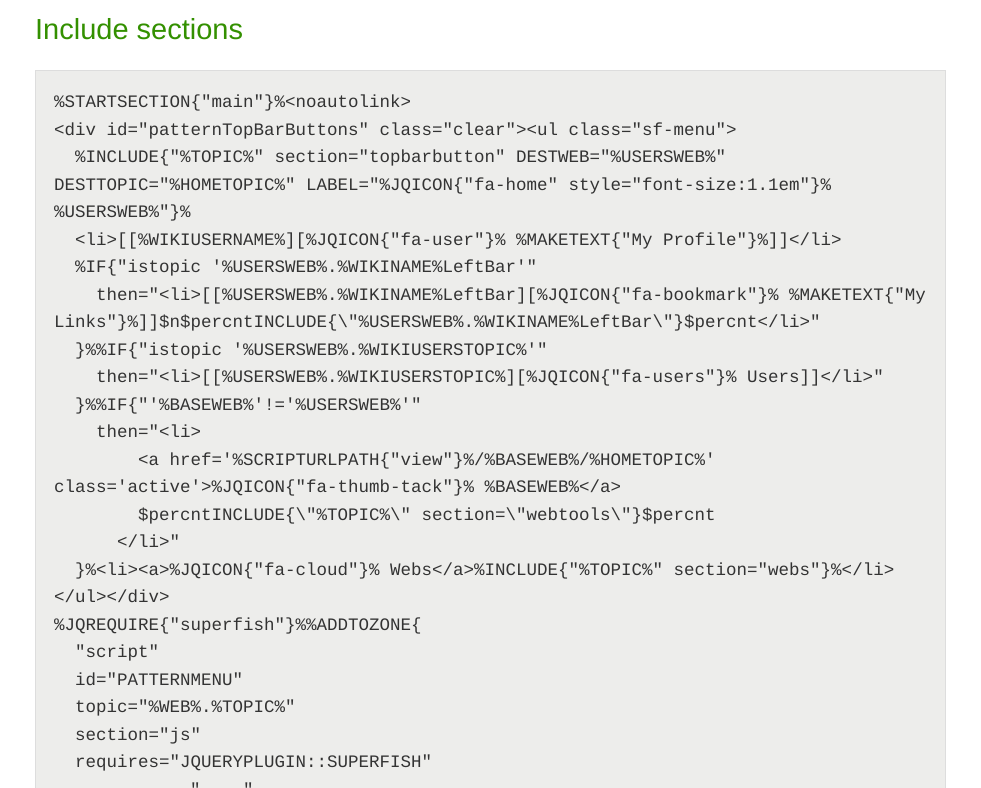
#include <cairo.h>
#include <math.h>
#include <stddef.h>


static void rgb(cairo_t *cr, int r, int g, int b)
{
	cairo_set_source_rgb(cr, r / 255.0, g / 255.0, b / 255.0);
}

static void face(cairo_t *cr, const char *family, double size, int italic, int bold)
{
	cairo_select_font_face(cr, family, italic ? CAIRO_FONT_SLANT_ITALIC : CAIRO_FONT_SLANT_NORMAL,
		bold ? CAIRO_FONT_WEIGHT_BOLD : CAIRO_FONT_WEIGHT_NORMAL);
	cairo_set_font_size(cr, size);
}

static void label(cairo_t *cr, double x, double y, const char *s)
{
	cairo_move_to(cr, x, y);
	cairo_show_text(cr, s);
}

static void draw(cairo_t *cr) {
	rgb(cr, 255, 255, 255);
	cairo_paint(cr);
	face(cr, "Liberation Sans", 29, 0, 0);
	rgb(cr, 51, 144, 0);
	label(cr, 35, 39, "Include sections");
	rgb(cr, 237, 237, 235);
	cairo_rectangle(cr, 35.5, 70.5, 910, 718);
	cairo_fill_preserve(cr);
	rgb(cr, 221, 221, 221);
	cairo_set_line_width(cr, 1);
	cairo_stroke(cr);
	face(cr, "Liberation Mono", 17.5, 0, 0);
	rgb(cr, 51, 51, 51);
	label(cr, 54, 107, "%STARTSECTION{\"main\"}%<noautolink>");
	label(cr, 54, 135, "<div id=\"patternTopBarButtons\" class=\"clear\"><ul class=\"sf-menu\">");
	label(cr, 75, 162, "%INCLUDE{\"%TOPIC%\" section=\"topbarbutton\" DESTWEB=\"%USERSWEB%\"");
	label(cr, 54, 190, "DESTTOPIC=\"%HOMETOPIC%\" LABEL=\"%JQICON{\"fa-home\" style=\"font-size:1.1em\"}%");
	label(cr, 54, 217, "%USERSWEB%\"}%");
	label(cr, 75, 245, "<li>[[%WIKIUSERNAME%][%JQICON{\"fa-user\"}% %MAKETEXT{\"My Profile\"}%]]</li>");
	label(cr, 75, 272, "%IF{\"istopic '%USERSWEB%.%WIKINAME%LeftBar'\"");
	label(cr, 96, 300, "then=\"<li>[[%USERSWEB%.%WIKINAME%LeftBar][%JQICON{\"fa-bookmark\"}% %MAKETEXT{\"My");
	label(cr, 54, 327, "Links\"}%]]$n$percntINCLUDE{\\\"%USERSWEB%.%WIKINAME%LeftBar\\\"}$percnt</li>\"");
	label(cr, 75, 355, "}%%IF{\"istopic '%USERSWEB%.%WIKIUSERSTOPIC%'\"");
	label(cr, 96, 382, "then=\"<li>[[%USERSWEB%.%WIKIUSERSTOPIC%][%JQICON{\"fa-users\"}% Users]]</li>\"");
	label(cr, 75, 410, "}%%IF{\"'%BASEWEB%'!='%USERSWEB%'\"");
	label(cr, 96, 437, "then=\"<li>");
	label(cr, 138, 465, "<a href='%SCRIPTURLPATH{\"view\"}%/%BASEWEB%/%HOMETOPIC%'");
	label(cr, 54, 492, "class='active'>%JQICON{\"fa-thumb-tack\"}% %BASEWEB%</a>");
	label(cr, 138, 520, "$percntINCLUDE{\\\"%TOPIC%\\\" section=\\\"webtools\\\"}$percnt");
	label(cr, 117, 547, "</li>\"");
	label(cr, 75, 575, "}%<li><a>%JQICON{\"fa-cloud\"}% Webs</a>%INCLUDE{\"%TOPIC%\" section=\"webs\"}%</li>");
	label(cr, 54, 602, "</ul></div>");
	label(cr, 54, 630, "%JQREQUIRE{\"superfish\"}%%ADDTOZONE{");
	label(cr, 75, 657, "\"script\"");
	label(cr, 75, 685, "id=\"PATTERNMENU\"");
	label(cr, 75, 712, "topic=\"%WEB%.%TOPIC%\"");
	label(cr, 75, 740, "section=\"js\"");
	label(cr, 75, 767, "requires=\"JQUERYPLUGIN::SUPERFISH\"");
	label(cr, 190, 795, "\"");
	label(cr, 243, 795, "\"");
}

int main(void) {
	cairo_surface_t *surface = cairo_image_surface_create(CAIRO_FORMAT_RGB24, 981, 788);
	cairo_t *cr = cairo_create(surface);
	cairo_font_options_t *options = cairo_font_options_create();
	cairo_font_options_set_hint_metrics(options, CAIRO_HINT_METRICS_OFF);
	cairo_font_options_set_hint_style(options, CAIRO_HINT_STYLE_NONE);
	cairo_set_font_options(cr, options);
	cairo_set_miter_limit(cr, 4);
	draw(cr);
	cairo_surface_write_to_png(surface, "render.png");
	cairo_font_options_destroy(options);
	cairo_destroy(cr);
	cairo_surface_destroy(surface);
	return 0;
}
